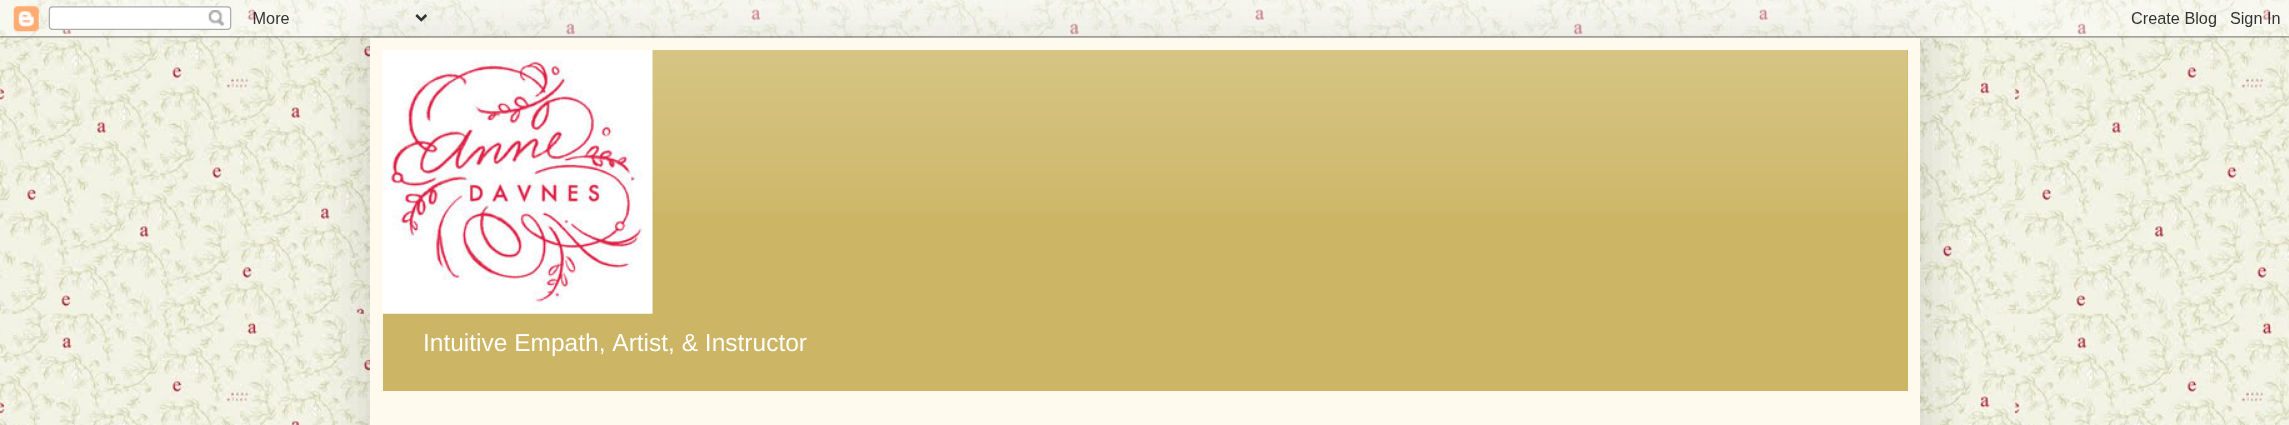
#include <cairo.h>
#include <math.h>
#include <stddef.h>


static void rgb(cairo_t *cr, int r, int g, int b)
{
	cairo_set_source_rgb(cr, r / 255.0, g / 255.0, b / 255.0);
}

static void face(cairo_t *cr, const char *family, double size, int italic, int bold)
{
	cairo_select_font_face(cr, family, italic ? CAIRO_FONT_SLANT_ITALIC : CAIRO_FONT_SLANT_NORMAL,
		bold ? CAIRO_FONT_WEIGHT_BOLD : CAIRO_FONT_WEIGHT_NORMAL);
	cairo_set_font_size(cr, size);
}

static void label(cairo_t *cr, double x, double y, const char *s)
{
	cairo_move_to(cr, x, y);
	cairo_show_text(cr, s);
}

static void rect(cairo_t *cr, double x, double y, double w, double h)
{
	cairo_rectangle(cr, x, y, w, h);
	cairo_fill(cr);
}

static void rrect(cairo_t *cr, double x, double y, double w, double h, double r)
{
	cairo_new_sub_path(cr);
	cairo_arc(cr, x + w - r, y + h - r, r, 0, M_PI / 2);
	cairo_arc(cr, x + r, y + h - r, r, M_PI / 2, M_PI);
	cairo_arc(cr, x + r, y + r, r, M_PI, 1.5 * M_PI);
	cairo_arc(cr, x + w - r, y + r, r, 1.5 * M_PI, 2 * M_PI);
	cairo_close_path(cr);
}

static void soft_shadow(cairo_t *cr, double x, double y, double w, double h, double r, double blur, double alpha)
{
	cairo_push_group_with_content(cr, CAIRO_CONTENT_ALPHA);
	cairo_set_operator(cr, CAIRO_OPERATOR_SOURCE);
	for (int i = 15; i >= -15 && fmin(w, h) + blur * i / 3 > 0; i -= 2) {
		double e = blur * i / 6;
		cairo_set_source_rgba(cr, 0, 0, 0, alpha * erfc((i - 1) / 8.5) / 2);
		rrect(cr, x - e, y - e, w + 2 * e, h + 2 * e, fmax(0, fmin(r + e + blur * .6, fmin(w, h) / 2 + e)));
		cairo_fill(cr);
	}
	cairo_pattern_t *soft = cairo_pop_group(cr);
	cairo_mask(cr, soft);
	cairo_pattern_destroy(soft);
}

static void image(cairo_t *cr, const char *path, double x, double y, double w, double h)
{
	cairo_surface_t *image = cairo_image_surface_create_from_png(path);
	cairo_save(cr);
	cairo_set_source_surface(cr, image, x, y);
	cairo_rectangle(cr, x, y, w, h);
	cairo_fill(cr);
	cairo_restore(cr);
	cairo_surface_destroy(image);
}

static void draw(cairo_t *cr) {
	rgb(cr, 255, 255, 255);
	cairo_paint(cr);
	image(cr, "image0.png", 0, 0, 2289, 425);
	rgb(cr, 0, 0, 0);
	soft_shadow(cr, 370, 38, 1550, 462, 0, 25, 0.15);
	image(cr, "image1.png", 0, 0, 2289, 38);
	rgb(cr, 255, 249, 238);
	rect(cr, 370, 38, 1550, 387);
	rgb(cr, 204, 182, 102);
	rect(cr, 383, 50, 1525, 341);
	image(cr, "image2.png", 652, 50, 1256, 163);
	image(cr, "image3.png", 382, 50, 271, 264);
	face(cr, "Liberation Sans", 24.5, 0, 0);
	rgb(cr, 255, 255, 255);
	label(cr, 423, 351, "Intuitive Empath, Artist, & Instructor");
}

int main(void) {
	cairo_surface_t *surface = cairo_image_surface_create(CAIRO_FORMAT_RGB24, 2289, 425);
	cairo_t *cr = cairo_create(surface);
	cairo_font_options_t *options = cairo_font_options_create();
	cairo_font_options_set_hint_metrics(options, CAIRO_HINT_METRICS_OFF);
	cairo_font_options_set_hint_style(options, CAIRO_HINT_STYLE_NONE);
	cairo_set_font_options(cr, options);
	cairo_set_miter_limit(cr, 4);
	draw(cr);
	cairo_surface_write_to_png(surface, "render.png");
	cairo_font_options_destroy(options);
	cairo_destroy(cr);
	cairo_surface_destroy(surface);
	return 0;
}
